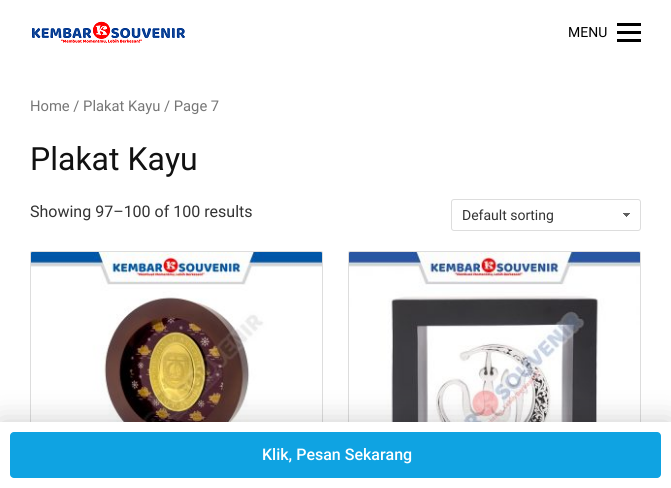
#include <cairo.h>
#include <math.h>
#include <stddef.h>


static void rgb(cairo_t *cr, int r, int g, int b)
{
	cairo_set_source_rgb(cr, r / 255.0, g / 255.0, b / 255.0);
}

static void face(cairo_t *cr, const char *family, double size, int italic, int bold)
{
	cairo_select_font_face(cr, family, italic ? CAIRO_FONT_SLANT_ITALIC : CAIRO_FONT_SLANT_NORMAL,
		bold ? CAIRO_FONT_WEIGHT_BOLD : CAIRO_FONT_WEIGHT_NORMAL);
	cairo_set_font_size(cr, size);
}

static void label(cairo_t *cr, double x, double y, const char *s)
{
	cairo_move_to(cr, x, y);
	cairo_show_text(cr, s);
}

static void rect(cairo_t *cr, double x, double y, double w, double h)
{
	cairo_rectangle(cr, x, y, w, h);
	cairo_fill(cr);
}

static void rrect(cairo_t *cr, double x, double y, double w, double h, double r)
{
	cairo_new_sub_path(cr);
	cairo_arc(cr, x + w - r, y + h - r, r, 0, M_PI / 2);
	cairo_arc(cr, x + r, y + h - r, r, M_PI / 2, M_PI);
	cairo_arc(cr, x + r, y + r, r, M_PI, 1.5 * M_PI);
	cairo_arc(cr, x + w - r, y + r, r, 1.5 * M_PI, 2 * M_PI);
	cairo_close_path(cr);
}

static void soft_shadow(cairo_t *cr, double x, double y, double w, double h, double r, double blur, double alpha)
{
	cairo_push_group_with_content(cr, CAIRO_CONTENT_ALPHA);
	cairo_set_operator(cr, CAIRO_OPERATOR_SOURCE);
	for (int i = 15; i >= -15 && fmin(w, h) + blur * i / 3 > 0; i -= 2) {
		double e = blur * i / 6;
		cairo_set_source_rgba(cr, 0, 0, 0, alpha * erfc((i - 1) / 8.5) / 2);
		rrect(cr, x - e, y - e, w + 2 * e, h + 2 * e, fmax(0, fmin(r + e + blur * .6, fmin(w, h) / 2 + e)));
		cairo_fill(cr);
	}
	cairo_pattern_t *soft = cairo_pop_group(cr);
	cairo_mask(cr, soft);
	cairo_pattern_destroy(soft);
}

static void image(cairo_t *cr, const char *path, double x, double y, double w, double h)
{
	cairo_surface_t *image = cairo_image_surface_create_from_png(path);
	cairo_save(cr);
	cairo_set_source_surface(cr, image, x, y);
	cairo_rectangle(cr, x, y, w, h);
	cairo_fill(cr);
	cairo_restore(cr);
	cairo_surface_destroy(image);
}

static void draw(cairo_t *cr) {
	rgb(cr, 255, 255, 255);
	cairo_paint(cr);
	image(cr, "image0.png", 32, 21, 153, 22);
	face(cr, "Roboto", 14, 0, 0);
	rgb(cr, 0, 0, 0);
	label(cr, 568, 37, "MENU");
	rect(cr, 617, 23, 24, 3);
	rect(cr, 617, 31, 24, 3);
	rect(cr, 617, 39, 24, 3);
	face(cr, "Roboto", 14.75, 0, 0);
	rgb(cr, 118, 118, 118);
	label(cr, 30, 111, "Home / Plakat Kayu / Page 7");
	face(cr, "Roboto", 32, 0, 0);
	rgb(cr, 17, 17, 17);
	label(cr, 30, 170, "Plakat Kayu");
	face(cr, "Roboto", 16, 0, 0);
	rgb(cr, 51, 51, 51);
	label(cr, 30, 217, "Showing 97–100 of 100 results");
	image(cr, "image1.png", 623, 213, 7, 4);
	rrect(cr, 451.5, 199.5, 189, 31, 2.5);
	rgb(cr, 221, 221, 221);
	cairo_set_line_width(cr, 1);
	cairo_stroke(cr);
	face(cr, "Roboto", 14, 0, 0);
	rgb(cr, 51, 51, 51);
	label(cr, 462, 220, "Default sorting");
	rrect(cr, 30.5, 251.5, 292, 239, 1.5);
	rgb(cr, 221, 221, 221);
	cairo_stroke(cr);
	image(cr, "image2.png", 31, 252, 291, 170);
	rrect(cr, 348.5, 251.5, 292, 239, 1.5);
	cairo_stroke(cr);
	image(cr, "image3.png", 349, 252, 291, 170);
	rgb(cr, 0, 0, 0);
	soft_shadow(cr, 0, 422, 671, 66, 0, 15, 0.2);
	rgb(cr, 255, 255, 255);
	rect(cr, 0, 422, 671, 66);
	rgb(cr, 15, 163, 226);
	rrect(cr, 10, 432, 651, 46, 4);
	cairo_fill(cr);
	face(cr, "Roboto Medium", 16, 0, 0);
	rgb(cr, 255, 255, 255);
	label(cr, 262, 460, "Klik, Pesan Sekarang");
}

int main(void) {
	cairo_surface_t *surface = cairo_image_surface_create(CAIRO_FORMAT_RGB24, 671, 488);
	cairo_t *cr = cairo_create(surface);
	cairo_font_options_t *options = cairo_font_options_create();
	cairo_font_options_set_hint_metrics(options, CAIRO_HINT_METRICS_OFF);
	cairo_font_options_set_hint_style(options, CAIRO_HINT_STYLE_NONE);
	cairo_set_font_options(cr, options);
	cairo_set_miter_limit(cr, 4);
	draw(cr);
	cairo_surface_write_to_png(surface, "render.png");
	cairo_font_options_destroy(options);
	cairo_destroy(cr);
	cairo_surface_destroy(surface);
	return 0;
}
